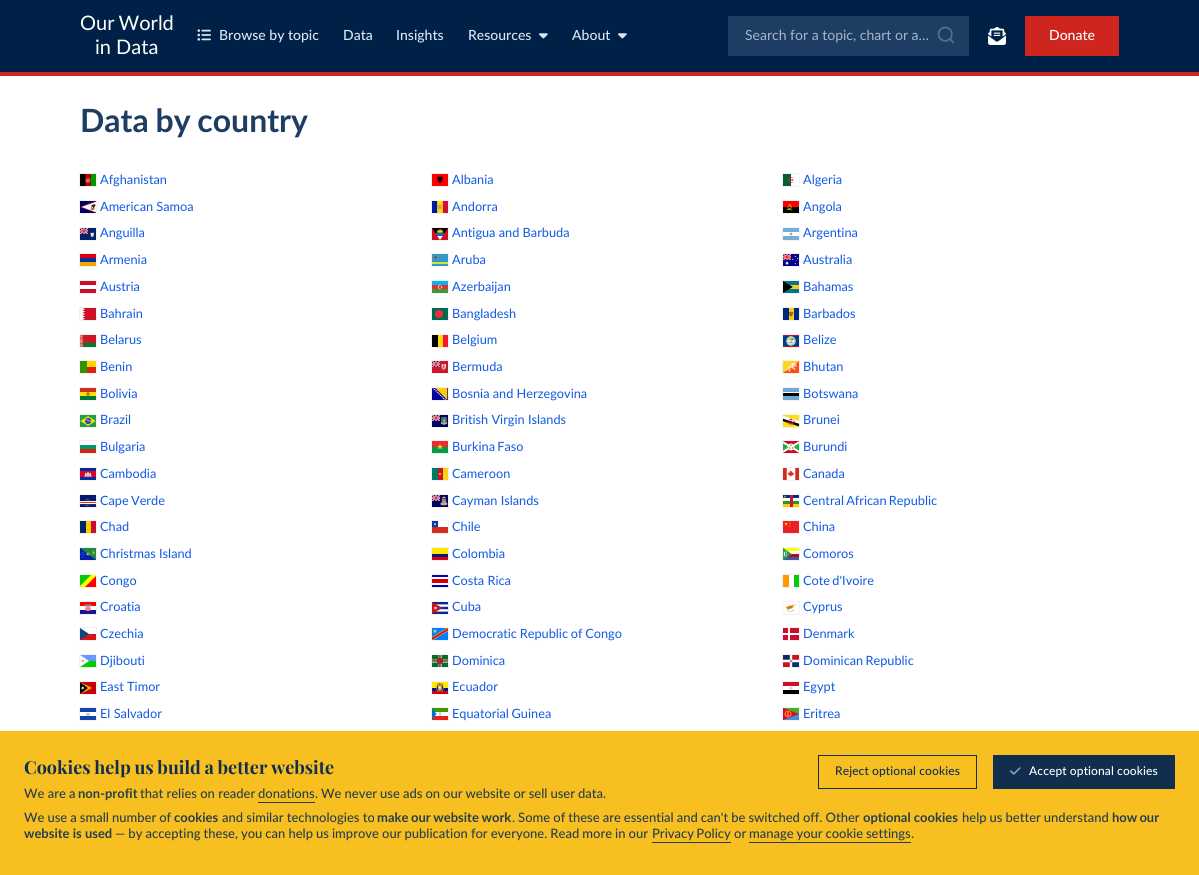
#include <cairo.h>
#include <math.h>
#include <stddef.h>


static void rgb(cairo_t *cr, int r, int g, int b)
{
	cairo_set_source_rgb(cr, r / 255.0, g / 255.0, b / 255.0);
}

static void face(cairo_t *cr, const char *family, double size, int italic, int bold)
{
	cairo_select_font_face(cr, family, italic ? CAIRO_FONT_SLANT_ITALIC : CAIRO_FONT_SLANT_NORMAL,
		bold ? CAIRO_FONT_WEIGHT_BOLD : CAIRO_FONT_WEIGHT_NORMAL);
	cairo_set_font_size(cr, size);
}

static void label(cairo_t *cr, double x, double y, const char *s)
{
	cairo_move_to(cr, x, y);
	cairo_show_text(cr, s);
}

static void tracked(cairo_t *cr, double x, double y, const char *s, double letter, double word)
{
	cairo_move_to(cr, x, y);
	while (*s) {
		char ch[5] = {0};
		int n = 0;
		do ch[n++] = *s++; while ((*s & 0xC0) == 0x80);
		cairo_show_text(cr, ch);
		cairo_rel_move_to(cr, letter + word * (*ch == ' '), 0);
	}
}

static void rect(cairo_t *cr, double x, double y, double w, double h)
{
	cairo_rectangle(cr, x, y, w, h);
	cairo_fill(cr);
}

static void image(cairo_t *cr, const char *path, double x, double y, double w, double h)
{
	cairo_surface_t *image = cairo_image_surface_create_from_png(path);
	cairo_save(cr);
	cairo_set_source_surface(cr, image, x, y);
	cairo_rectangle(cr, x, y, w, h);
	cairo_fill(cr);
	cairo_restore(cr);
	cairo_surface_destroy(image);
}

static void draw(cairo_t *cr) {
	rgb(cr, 255, 255, 255);
	cairo_paint(cr);
	rgb(cr, 0, 33, 71);
	rect(cr, 0, 0, 1199, 72);
	rgb(cr, 206, 38, 30);
	rect(cr, 0, 72, 1199, 4);
	face(cr, "Lato", 20, 0, 0);
	rgb(cr, 255, 255, 255);
	tracked(cr, 80, 30, "Our World", 0, -1);
	label(cr, 95, 54, "in Data");
	image(cr, "image0.png", 197, 29, 14, 12);
	face(cr, "Lato Medium", 14, 0, 0);
	rgb(cr, 219, 229, 240);
	label(cr, 219, 40, "Browse by topic");
	label(cr, 343, 40, "Data");
	label(cr, 396, 40, "Insights");
	label(cr, 468, 40, "Resources");
	image(cr, "image1.png", 539, 33, 9, 6);
	label(cr, 572, 40, "About");
	image(cr, "image1.png", 618, 33, 9, 6);
	rgb(cr, 29, 61, 99);
	rect(cr, 728, 16, 241, 40);
	face(cr, "Lato", 14, 0, 0);
	rgb(cr, 164, 182, 202);
	label(cr, 745, 40, "Search for a topic, chart or a…");
	image(cr, "image2.png", 937, 26, 18, 18);
	image(cr, "image3.png", 988, 27, 18, 18);
	rgb(cr, 206, 38, 30);
	rect(cr, 1025, 16, 94, 40);
	face(cr, "Lato Medium", 14, 0, 0);
	rgb(cr, 255, 255, 255);
	label(cr, 1049, 40, "Donate");
	face(cr, "Lato", 32, 0, 1);
	rgb(cr, 29, 61, 99);
	tracked(cr, 80, 132, "Data by country", 0, -1);
	image(cr, "image4.png", 80, 174, 16, 12);
	cairo_rectangle(cr, 79.5, 173.5, 17, 13);
	rgb(cr, 242, 242, 242);
	cairo_set_line_width(cr, 1);
	cairo_stroke(cr);
	face(cr, "Lato", 12.75, 0, 0);
	rgb(cr, 16, 89, 229);
	label(cr, 100, 184, "Afghanistan");
	image(cr, "image5.png", 432, 174, 16, 12);
	cairo_rectangle(cr, 431.5, 173.5, 17, 13);
	rgb(cr, 242, 242, 242);
	cairo_stroke(cr);
	rgb(cr, 16, 89, 229);
	label(cr, 452, 184, "Albania");
	image(cr, "image6.png", 783, 174, 11, 12);
	cairo_rectangle(cr, 782.5, 173.5, 17, 13);
	rgb(cr, 242, 242, 242);
	cairo_stroke(cr);
	rgb(cr, 16, 89, 229);
	label(cr, 803, 184, "Algeria");
	image(cr, "image7.png", 80, 201, 16, 12);
	cairo_rectangle(cr, 79.5, 200.5, 17, 13);
	rgb(cr, 242, 242, 242);
	cairo_stroke(cr);
	rgb(cr, 16, 89, 229);
	label(cr, 100, 211, "American Samoa");
	image(cr, "image8.png", 432, 201, 16, 12);
	cairo_rectangle(cr, 431.5, 200.5, 17, 13);
	rgb(cr, 242, 242, 242);
	cairo_stroke(cr);
	rgb(cr, 16, 89, 229);
	label(cr, 452, 211, "Andorra");
	image(cr, "image9.png", 783, 201, 16, 12);
	cairo_rectangle(cr, 782.5, 200.5, 17, 13);
	rgb(cr, 242, 242, 242);
	cairo_stroke(cr);
	rgb(cr, 16, 89, 229);
	label(cr, 803, 211, "Angola");
	image(cr, "image10.png", 80, 228, 16, 12);
	cairo_rectangle(cr, 79.5, 227.5, 17, 13);
	rgb(cr, 242, 242, 242);
	cairo_stroke(cr);
	rgb(cr, 16, 89, 229);
	label(cr, 100, 237, "Anguilla");
	image(cr, "image11.png", 432, 228, 16, 12);
	cairo_rectangle(cr, 431.5, 227.5, 17, 13);
	rgb(cr, 242, 242, 242);
	cairo_stroke(cr);
	rgb(cr, 16, 89, 229);
	label(cr, 452, 237, "Antigua and Barbuda");
	image(cr, "image12.png", 783, 228, 16, 12);
	cairo_rectangle(cr, 782.5, 227.5, 17, 13);
	rgb(cr, 242, 242, 242);
	cairo_stroke(cr);
	rgb(cr, 16, 89, 229);
	label(cr, 803, 237, "Argentina");
	rgb(cr, 217, 0, 18);
	rect(cr, 80, 254, 16, 4);
	rgb(cr, 0, 51, 160);
	rect(cr, 80, 258, 16, 4);
	rgb(cr, 242, 168, 0);
	rect(cr, 80, 262, 16, 4);
	cairo_rectangle(cr, 79.5, 253.5, 17, 13);
	rgb(cr, 242, 242, 242);
	cairo_stroke(cr);
	rgb(cr, 16, 89, 229);
	label(cr, 100, 264, "Armenia");
	image(cr, "image13.png", 432, 254, 16, 12);
	cairo_rectangle(cr, 431.5, 253.5, 17, 13);
	rgb(cr, 242, 242, 242);
	cairo_stroke(cr);
	rgb(cr, 16, 89, 229);
	label(cr, 452, 264, "Aruba");
	image(cr, "image14.png", 783, 254, 16, 12);
	cairo_rectangle(cr, 782.5, 253.5, 17, 13);
	rgb(cr, 242, 242, 242);
	cairo_stroke(cr);
	rgb(cr, 16, 89, 229);
	label(cr, 803, 264, "Australia");
	image(cr, "image15.png", 80, 281, 16, 12);
	cairo_rectangle(cr, 79.5, 280.5, 17, 13);
	rgb(cr, 242, 242, 242);
	cairo_stroke(cr);
	rgb(cr, 16, 89, 229);
	label(cr, 100, 291, "Austria");
	image(cr, "image16.png", 432, 281, 16, 12);
	cairo_rectangle(cr, 431.5, 280.5, 17, 13);
	rgb(cr, 242, 242, 242);
	cairo_stroke(cr);
	rgb(cr, 16, 89, 229);
	label(cr, 452, 291, "Azerbaijan");
	image(cr, "image17.png", 783, 281, 16, 12);
	cairo_rectangle(cr, 782.5, 280.5, 17, 13);
	rgb(cr, 242, 242, 242);
	cairo_stroke(cr);
	rgb(cr, 16, 89, 229);
	label(cr, 803, 291, "Bahamas");
	image(cr, "image18.png", 82, 308, 14, 12);
	cairo_rectangle(cr, 79.5, 307.5, 17, 13);
	rgb(cr, 242, 242, 242);
	cairo_stroke(cr);
	rgb(cr, 16, 89, 229);
	label(cr, 100, 318, "Bahrain");
	rgb(cr, 0, 106, 78);
	rect(cr, 432, 308, 16, 12);
	rgb(cr, 244, 42, 65);
	cairo_new_path(cr);
	cairo_arc(cr, 439, 314, 4, 0, 2 * M_PI);
	cairo_fill(cr);
	cairo_rectangle(cr, 431.5, 307.5, 17, 13);
	rgb(cr, 242, 242, 242);
	cairo_stroke(cr);
	rgb(cr, 16, 89, 229);
	label(cr, 452, 318, "Bangladesh");
	image(cr, "image19.png", 783, 308, 16, 12);
	cairo_rectangle(cr, 782.5, 307.5, 17, 13);
	rgb(cr, 242, 242, 242);
	cairo_stroke(cr);
	rgb(cr, 16, 89, 229);
	label(cr, 803, 318, "Barbados");
	image(cr, "image20.png", 80, 335, 16, 12);
	cairo_rectangle(cr, 79.5, 334.5, 17, 13);
	rgb(cr, 242, 242, 242);
	cairo_stroke(cr);
	rgb(cr, 16, 89, 229);
	label(cr, 100, 344, "Belarus");
	rgb(cr, 0, 0, 1);
	rect(cr, 432, 335, 6, 12);
	rgb(cr, 255, 217, 12);
	rect(cr, 438, 335, 5, 12);
	rgb(cr, 243, 24, 48);
	rect(cr, 443, 335, 5, 12);
	cairo_rectangle(cr, 431.5, 334.5, 17, 13);
	rgb(cr, 242, 242, 242);
	cairo_stroke(cr);
	rgb(cr, 16, 89, 229);
	label(cr, 452, 344, "Belgium");
	image(cr, "image21.png", 783, 335, 16, 12);
	cairo_rectangle(cr, 782.5, 334.5, 17, 13);
	rgb(cr, 242, 242, 242);
	cairo_stroke(cr);
	rgb(cr, 16, 89, 229);
	label(cr, 803, 344, "Belize");
	rgb(cr, 49, 148, 0);
	rect(cr, 80, 361, 7, 12);
	rgb(cr, 255, 214, 0);
	rect(cr, 87, 361, 9, 6);
	rgb(cr, 222, 33, 16);
	rect(cr, 87, 367, 9, 6);
	cairo_rectangle(cr, 79.5, 360.5, 17, 13);
	rgb(cr, 242, 242, 242);
	cairo_stroke(cr);
	rgb(cr, 16, 89, 229);
	label(cr, 100, 371, "Benin");
	image(cr, "image22.png", 432, 361, 16, 12);
	cairo_rectangle(cr, 431.5, 360.5, 17, 13);
	rgb(cr, 242, 242, 242);
	cairo_stroke(cr);
	rgb(cr, 16, 89, 229);
	label(cr, 452, 371, "Bermuda");
	image(cr, "image23.png", 783, 361, 16, 12);
	cairo_rectangle(cr, 782.5, 360.5, 17, 13);
	rgb(cr, 242, 242, 242);
	cairo_stroke(cr);
	rgb(cr, 16, 89, 229);
	label(cr, 803, 371, "Bhutan");
	image(cr, "image24.png", 80, 388, 16, 12);
	cairo_rectangle(cr, 79.5, 387.5, 17, 13);
	rgb(cr, 242, 242, 242);
	cairo_stroke(cr);
	rgb(cr, 16, 89, 229);
	label(cr, 100, 398, "Bolivia");
	image(cr, "image25.png", 432, 388, 16, 12);
	cairo_rectangle(cr, 431.5, 387.5, 17, 13);
	rgb(cr, 242, 242, 242);
	cairo_stroke(cr);
	rgb(cr, 16, 89, 229);
	label(cr, 452, 398, "Bosnia and Herzegovina");
	rgb(cr, 109, 169, 210);
	rect(cr, 783, 388, 16, 12);
	rgb(cr, 255, 255, 255);
	rect(cr, 783, 392, 16, 1);
	rgb(cr, 0, 0, 1);
	rect(cr, 783, 393, 16, 3);
	cairo_rectangle(cr, 782.5, 387.5, 17, 13);
	rgb(cr, 242, 242, 242);
	cairo_stroke(cr);
	rgb(cr, 16, 89, 229);
	label(cr, 803, 398, "Botswana");
	image(cr, "image26.png", 80, 415, 16, 12);
	cairo_rectangle(cr, 79.5, 414.5, 17, 13);
	rgb(cr, 242, 242, 242);
	cairo_stroke(cr);
	rgb(cr, 16, 89, 229);
	label(cr, 100, 424, "Brazil");
	image(cr, "image27.png", 432, 415, 16, 12);
	cairo_rectangle(cr, 431.5, 414.5, 17, 13);
	rgb(cr, 242, 242, 242);
	cairo_stroke(cr);
	rgb(cr, 16, 89, 229);
	label(cr, 452, 424, "British Virgin Islands");
	image(cr, "image28.png", 783, 415, 16, 12);
	cairo_rectangle(cr, 782.5, 414.5, 17, 13);
	rgb(cr, 242, 242, 242);
	cairo_stroke(cr);
	rgb(cr, 16, 89, 229);
	label(cr, 803, 424, "Brunei");
	rgb(cr, 0, 150, 110);
	rect(cr, 80, 445, 16, 4);
	rgb(cr, 214, 38, 18);
	rect(cr, 80, 449, 16, 4);
	cairo_rectangle(cr, 79.5, 440.5, 17, 13);
	rgb(cr, 242, 242, 242);
	cairo_stroke(cr);
	rgb(cr, 16, 89, 229);
	label(cr, 100, 451, "Bulgaria");
	image(cr, "image29.png", 432, 441, 16, 12);
	cairo_rectangle(cr, 431.5, 440.5, 17, 13);
	rgb(cr, 242, 242, 242);
	cairo_stroke(cr);
	rgb(cr, 16, 89, 229);
	tracked(cr, 452, 451, "Burkina Faso", 0, -1);
	image(cr, "image30.png", 783, 441, 16, 12);
	cairo_rectangle(cr, 782.5, 440.5, 17, 13);
	rgb(cr, 242, 242, 242);
	cairo_stroke(cr);
	rgb(cr, 16, 89, 229);
	label(cr, 803, 451, "Burundi");
	image(cr, "image31.png", 80, 468, 16, 12);
	cairo_rectangle(cr, 79.5, 467.5, 17, 13);
	rgb(cr, 242, 242, 242);
	cairo_stroke(cr);
	rgb(cr, 16, 89, 229);
	label(cr, 100, 478, "Cambodia");
	image(cr, "image32.png", 432, 468, 16, 12);
	cairo_rectangle(cr, 431.5, 467.5, 17, 13);
	rgb(cr, 242, 242, 242);
	cairo_stroke(cr);
	rgb(cr, 16, 89, 229);
	label(cr, 452, 478, "Cameroon");
	image(cr, "image33.png", 783, 468, 16, 12);
	cairo_rectangle(cr, 782.5, 467.5, 17, 13);
	rgb(cr, 242, 242, 242);
	cairo_stroke(cr);
	rgb(cr, 16, 89, 229);
	label(cr, 803, 478, "Canada");
	image(cr, "image34.png", 80, 495, 16, 12);
	cairo_rectangle(cr, 79.5, 494.5, 17, 13);
	rgb(cr, 242, 242, 242);
	cairo_stroke(cr);
	rgb(cr, 16, 89, 229);
	tracked(cr, 100, 505, "Cape Verde", 0, -1);
	image(cr, "image35.png", 432, 495, 16, 12);
	cairo_rectangle(cr, 431.5, 494.5, 17, 13);
	rgb(cr, 242, 242, 242);
	cairo_stroke(cr);
	rgb(cr, 16, 89, 229);
	label(cr, 452, 505, "Cayman Islands");
	image(cr, "image36.png", 783, 495, 16, 12);
	cairo_rectangle(cr, 782.5, 494.5, 17, 13);
	rgb(cr, 242, 242, 242);
	cairo_stroke(cr);
	rgb(cr, 16, 89, 229);
	tracked(cr, 803, 505, "Central African Republic", 0, -1);
	rgb(cr, 0, 38, 100);
	rect(cr, 80, 521, 6, 12);
	rgb(cr, 198, 12, 48);
	rect(cr, 91, 521, 5, 12);
	rgb(cr, 254, 203, 0);
	rect(cr, 86, 521, 5, 12);
	cairo_rectangle(cr, 79.5, 520.5, 17, 13);
	rgb(cr, 242, 242, 242);
	cairo_stroke(cr);
	rgb(cr, 16, 89, 229);
	label(cr, 100, 531, "Chad");
	image(cr, "image37.png", 432, 521, 16, 12);
	cairo_rectangle(cr, 431.5, 520.5, 17, 13);
	rgb(cr, 242, 242, 242);
	cairo_stroke(cr);
	rgb(cr, 16, 89, 229);
	label(cr, 452, 531, "Chile");
	image(cr, "image38.png", 783, 521, 16, 12);
	cairo_rectangle(cr, 782.5, 520.5, 17, 13);
	rgb(cr, 242, 242, 242);
	cairo_stroke(cr);
	rgb(cr, 16, 89, 229);
	label(cr, 803, 531, "China");
	image(cr, "image39.png", 80, 548, 16, 12);
	cairo_rectangle(cr, 79.5, 547.5, 17, 13);
	rgb(cr, 242, 242, 242);
	cairo_stroke(cr);
	rgb(cr, 16, 89, 229);
	label(cr, 100, 558, "Christmas Island");
	rgb(cr, 255, 232, 0);
	rect(cr, 432, 548, 16, 6);
	rgb(cr, 0, 20, 142);
	rect(cr, 432, 554, 16, 3);
	rgb(cr, 218, 0, 16);
	rect(cr, 432, 557, 16, 3);
	cairo_rectangle(cr, 431.5, 547.5, 17, 13);
	rgb(cr, 242, 242, 242);
	cairo_stroke(cr);
	rgb(cr, 16, 89, 229);
	label(cr, 452, 558, "Colombia");
	image(cr, "image40.png", 783, 548, 16, 12);
	cairo_rectangle(cr, 782.5, 547.5, 17, 13);
	rgb(cr, 242, 242, 242);
	cairo_stroke(cr);
	rgb(cr, 16, 89, 229);
	label(cr, 803, 558, "Comoros");
	image(cr, "image41.png", 80, 575, 16, 12);
	cairo_rectangle(cr, 79.5, 574.5, 17, 13);
	rgb(cr, 242, 242, 242);
	cairo_stroke(cr);
	rgb(cr, 16, 89, 229);
	label(cr, 100, 585, "Congo");
	rgb(cr, 0, 0, 180);
	rect(cr, 432, 575, 16, 12);
	rgb(cr, 255, 255, 255);
	rect(cr, 432, 577, 16, 8);
	rgb(cr, 217, 0, 0);
	rect(cr, 432, 579, 16, 4);
	cairo_rectangle(cr, 431.5, 574.5, 17, 13);
	rgb(cr, 242, 242, 242);
	cairo_stroke(cr);
	rgb(cr, 16, 89, 229);
	label(cr, 452, 585, "Costa Rica");
	rgb(cr, 0, 205, 0);
	rect(cr, 794, 575, 5, 12);
	rgb(cr, 255, 154, 0);
	rect(cr, 783, 575, 6, 12);
	cairo_rectangle(cr, 782.5, 574.5, 17, 13);
	rgb(cr, 242, 242, 242);
	cairo_stroke(cr);
	rgb(cr, 16, 89, 229);
	tracked(cr, 803, 585, "Cote d'Ivoire", 0, -1);
	image(cr, "image42.png", 80, 602, 16, 12);
	cairo_rectangle(cr, 79.5, 601.5, 17, 13);
	rgb(cr, 242, 242, 242);
	cairo_stroke(cr);
	rgb(cr, 16, 89, 229);
	label(cr, 100, 611, "Croatia");
	image(cr, "image43.png", 432, 602, 16, 12);
	cairo_rectangle(cr, 431.5, 601.5, 17, 13);
	rgb(cr, 242, 242, 242);
	cairo_stroke(cr);
	rgb(cr, 16, 89, 229);
	label(cr, 452, 611, "Cuba");
	image(cr, "image44.png", 786, 604, 10, 8);
	cairo_rectangle(cr, 782.5, 601.5, 17, 13);
	rgb(cr, 242, 242, 242);
	cairo_stroke(cr);
	rgb(cr, 16, 89, 229);
	label(cr, 803, 611, "Cyprus");
	image(cr, "image45.png", 80, 628, 16, 12);
	cairo_rectangle(cr, 79.5, 627.5, 17, 13);
	rgb(cr, 242, 242, 242);
	cairo_stroke(cr);
	rgb(cr, 16, 89, 229);
	label(cr, 100, 638, "Czechia");
	image(cr, "image46.png", 432, 628, 16, 12);
	cairo_rectangle(cr, 431.5, 627.5, 17, 13);
	rgb(cr, 242, 242, 242);
	cairo_stroke(cr);
	rgb(cr, 16, 89, 229);
	tracked(cr, 452, 638, "Democratic Republic of Congo", 0, -0.5);
	rgb(cr, 200, 16, 46);
	rect(cr, 783, 628, 16, 12);
	rgb(cr, 255, 255, 255);
	rect(cr, 788, 628, 2, 12);
	rect(cr, 783, 633, 16, 2);
	cairo_rectangle(cr, 782.5, 627.5, 17, 13);
	rgb(cr, 242, 242, 242);
	cairo_stroke(cr);
	rgb(cr, 16, 89, 229);
	label(cr, 803, 638, "Denmark");
	image(cr, "image47.png", 80, 655, 16, 12);
	cairo_rectangle(cr, 79.5, 654.5, 17, 13);
	rgb(cr, 242, 242, 242);
	cairo_stroke(cr);
	rgb(cr, 16, 89, 229);
	label(cr, 100, 665, "Djibouti");
	image(cr, "image48.png", 432, 655, 16, 12);
	cairo_rectangle(cr, 431.5, 654.5, 17, 13);
	rgb(cr, 242, 242, 242);
	cairo_stroke(cr);
	rgb(cr, 16, 89, 229);
	label(cr, 452, 665, "Dominica");
	image(cr, "image49.png", 783, 655, 16, 12);
	cairo_rectangle(cr, 782.5, 654.5, 17, 13);
	rgb(cr, 242, 242, 242);
	cairo_stroke(cr);
	rgb(cr, 16, 89, 229);
	tracked(cr, 803, 665, "Dominican Republic", 0, -1);
	image(cr, "image50.png", 80, 682, 16, 12);
	cairo_rectangle(cr, 79.5, 681.5, 17, 13);
	rgb(cr, 242, 242, 242);
	cairo_stroke(cr);
	rgb(cr, 16, 89, 229);
	label(cr, 100, 691, "East Timor");
	image(cr, "image51.png", 432, 682, 16, 12);
	cairo_rectangle(cr, 431.5, 681.5, 17, 13);
	rgb(cr, 242, 242, 242);
	cairo_stroke(cr);
	rgb(cr, 16, 89, 229);
	label(cr, 452, 691, "Ecuador");
	image(cr, "image52.png", 783, 682, 16, 12);
	cairo_rectangle(cr, 782.5, 681.5, 17, 13);
	rgb(cr, 242, 242, 242);
	cairo_stroke(cr);
	rgb(cr, 16, 89, 229);
	label(cr, 803, 691, "Egypt");
	image(cr, "image53.png", 80, 708, 16, 12);
	cairo_rectangle(cr, 79.5, 707.5, 17, 13);
	rgb(cr, 242, 242, 242);
	cairo_stroke(cr);
	rgb(cr, 16, 89, 229);
	label(cr, 100, 718, "El Salvador");
	image(cr, "image54.png", 432, 708, 16, 12);
	cairo_rectangle(cr, 431.5, 707.5, 17, 13);
	rgb(cr, 242, 242, 242);
	cairo_stroke(cr);
	rgb(cr, 16, 89, 229);
	tracked(cr, 452, 718, "Equatorial Guinea", 0, -0.5);
	image(cr, "image55.png", 783, 708, 16, 12);
	cairo_rectangle(cr, 782.5, 707.5, 17, 13);
	rgb(cr, 242, 242, 242);
	cairo_stroke(cr);
	rgb(cr, 16, 89, 229);
	label(cr, 803, 718, "Eritrea");
	rgb(cr, 247, 192, 32);
	rect(cr, 0, 731, 1199, 144);
	face(cr, "Playfair Display", 18, 0, 1);
	rgb(cr, 17, 46, 79);
	tracked(cr, 24, 774, "Cookies help us build a better website", 0, -0.5);
	face(cr, "Lato Medium", 13, 0, 0);
	rgb(cr, 40, 61, 74);
	label(cr, 24, 798, "We are a");
	face(cr, "Lato", 13, 0, 1);
	label(cr, 78, 798, "non-profit");
	face(cr, "Lato Medium", 13, 0, 0);
	label(cr, 140, 798, "that relies on reader");
	label(cr, 258, 798, "donations");
	rect(cr, 258, 802, 57, 1);
	tracked(cr, 315, 798, ". We never use ads on our website or sell user data.", 0, -0.25);
	cairo_rectangle(cr, 818.5, 755.5, 158, 33);
	rgb(cr, 17, 46, 79);
	cairo_stroke(cr);
	face(cr, "Lato Medium", 12, 0, 0);
	tracked(cr, 835, 775, "Reject optional cookies", 0.1, 0);
	rect(cr, 993, 755, 182, 34);
	image(cr, "image56.png", 1010, 767, 11, 8);
	rgb(cr, 255, 255, 255);
	tracked(cr, 1029, 775, "Accept optional cookies", 0.1, 0);
	face(cr, "Lato Medium", 13, 0, 0);
	rgb(cr, 40, 61, 74);
	tracked(cr, 24, 822, "We use a small number of", 0, -0.25);
	face(cr, "Lato", 13, 0, 1);
	label(cr, 174, 822, "cookies");
	face(cr, "Lato Medium", 13, 0, 0);
	label(cr, 222, 822, "and similar technologies to");
	face(cr, "Lato", 13, 0, 1);
	tracked(cr, 377, 822, "make our website work", 0, -0.5);
	face(cr, "Lato Medium", 13, 0, 0);
	tracked(cr, 512, 822, ". Some of these are essential and can't be switched off. Other", 0, -0.25);
	face(cr, "Lato", 13, 0, 1);
	label(cr, 863, 822, "optional cookies");
	face(cr, "Lato Medium", 13, 0, 0);
	tracked(cr, 962, 822, "help us better understand", 0, -0.25);
	face(cr, "Lato", 13, 0, 1);
	tracked(cr, 1112, 822, "how our", 0, -1);
	label(cr, 24, 838, "website is used");
	face(cr, "Lato Medium", 13, 0, 0);
	tracked(cr, 115, 838, "— by accepting these, you can help us improve our publication for everyone. Read more in our", 0, -0.25);
	tracked(cr, 652, 838, "Privacy Policy", 0, -1);
	rect(cr, 652, 842, 79, 1);
	label(cr, 734, 838, "or");
	tracked(cr, 749, 838, "manage your cookie settings", 0, -0.5);
	rect(cr, 749, 842, 162, 1);
	label(cr, 911, 838, ".");
}

int main(void) {
	cairo_surface_t *surface = cairo_image_surface_create(CAIRO_FORMAT_RGB24, 1199, 875);
	cairo_t *cr = cairo_create(surface);
	cairo_font_options_t *options = cairo_font_options_create();
	cairo_font_options_set_hint_metrics(options, CAIRO_HINT_METRICS_OFF);
	cairo_font_options_set_hint_style(options, CAIRO_HINT_STYLE_NONE);
	cairo_set_font_options(cr, options);
	cairo_set_miter_limit(cr, 4);
	draw(cr);
	cairo_surface_write_to_png(surface, "render.png");
	cairo_font_options_destroy(options);
	cairo_destroy(cr);
	cairo_surface_destroy(surface);
	return 0;
}
